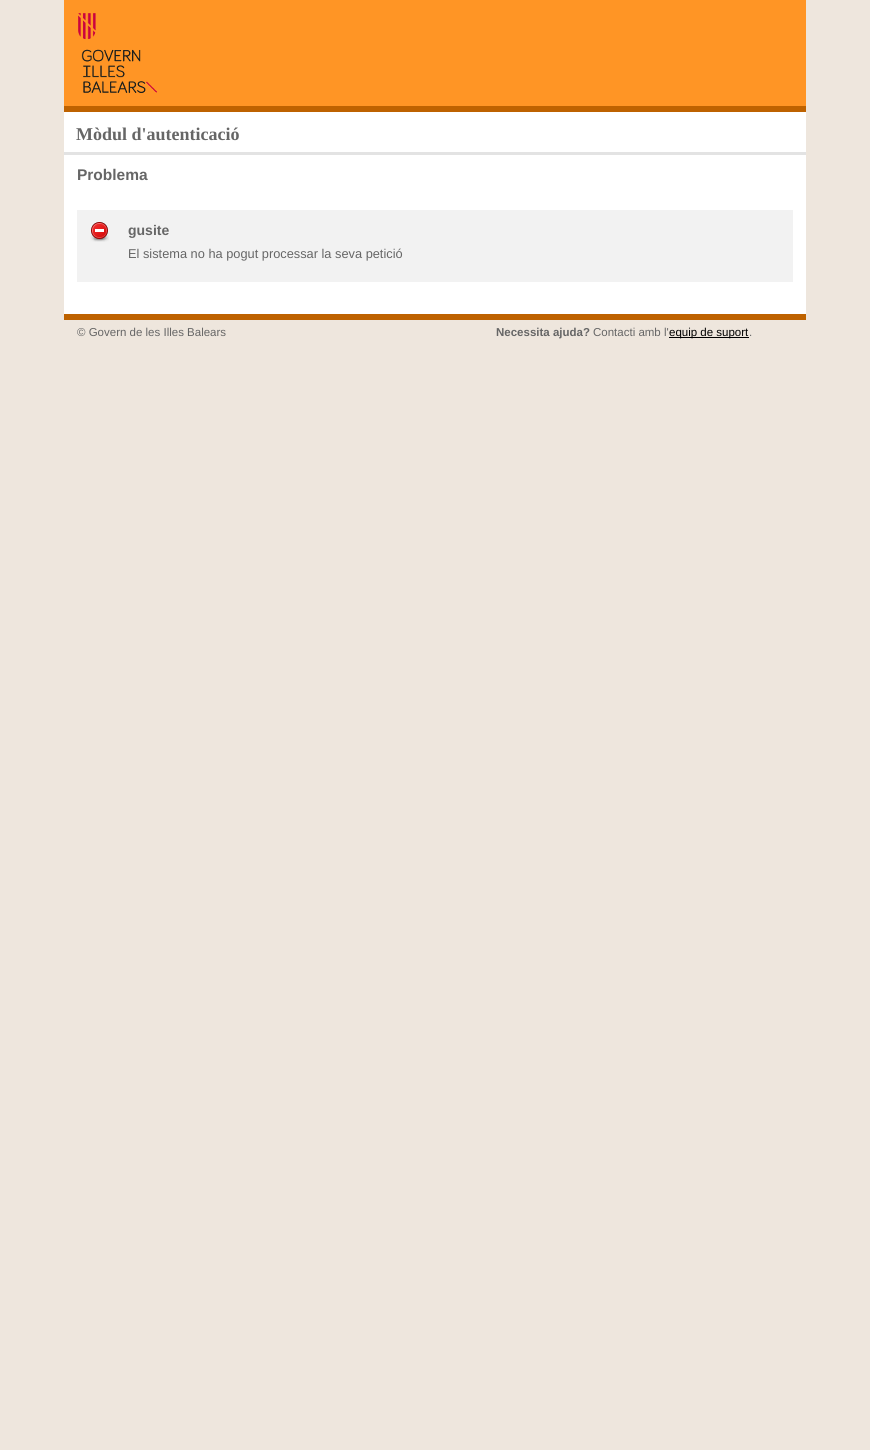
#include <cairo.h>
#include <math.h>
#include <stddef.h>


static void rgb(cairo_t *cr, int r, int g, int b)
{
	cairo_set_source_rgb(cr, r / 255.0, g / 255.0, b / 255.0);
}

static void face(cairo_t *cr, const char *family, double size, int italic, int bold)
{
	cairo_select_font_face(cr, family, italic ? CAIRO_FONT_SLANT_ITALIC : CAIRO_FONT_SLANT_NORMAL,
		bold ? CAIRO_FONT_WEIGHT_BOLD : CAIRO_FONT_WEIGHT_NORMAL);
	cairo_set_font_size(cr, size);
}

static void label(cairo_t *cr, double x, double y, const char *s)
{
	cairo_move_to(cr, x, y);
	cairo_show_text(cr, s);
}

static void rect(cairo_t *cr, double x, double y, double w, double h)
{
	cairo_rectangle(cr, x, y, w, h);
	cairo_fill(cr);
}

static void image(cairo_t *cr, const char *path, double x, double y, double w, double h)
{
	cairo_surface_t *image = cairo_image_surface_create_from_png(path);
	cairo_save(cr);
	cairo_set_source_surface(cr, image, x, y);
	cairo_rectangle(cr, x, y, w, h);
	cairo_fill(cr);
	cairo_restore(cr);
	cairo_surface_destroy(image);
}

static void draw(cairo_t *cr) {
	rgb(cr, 238, 230, 221);
	cairo_paint(cr);
	rgb(cr, 255, 255, 255);
	rect(cr, 64, 112, 742, 202);
	rgb(cr, 255, 149, 37);
	rect(cr, 64, 0, 742, 106);
	rgb(cr, 190, 98, 0);
	rect(cr, 64, 106, 742, 6);
	image(cr, "image0.png", 78, 13, 79, 80);
	rgb(cr, 227, 227, 227);
	rect(cr, 64, 152, 742, 3);
	face(cr, "Liberation Serif", 18, 0, 1);
	rgb(cr, 102, 102, 102);
	label(cr, 76, 140, "Mòdul d'autenticació");
	face(cr, "Liberation Sans", 15.5, 0, 1);
	label(cr, 77, 180, "Problema");
	rgb(cr, 242, 242, 242);
	rect(cr, 77, 210, 716, 72);
	image(cr, "image1.png", 90, 222, 19, 20);
	face(cr, "Liberation Sans", 14, 0, 1);
	rgb(cr, 102, 102, 102);
	label(cr, 128, 235, "gusite");
	face(cr, "Liberation Sans", 12.8, 0, 0);
	label(cr, 128, 258, "El sistema no ha pogut processar la seva petició");
	rgb(cr, 190, 98, 0);
	rect(cr, 64, 314, 742, 6);
	face(cr, "Liberation Sans", 11.5, 0, 0);
	rgb(cr, 102, 102, 102);
	label(cr, 77, 336, "© Govern de les Illes Balears");
	face(cr, "Liberation Sans", 11.5, 0, 1);
	label(cr, 496, 336, "Necessita ajuda?");
	face(cr, "Liberation Sans", 11.5, 0, 0);
	label(cr, 593, 336, "Contacti amb l'");
	rgb(cr, 0, 0, 0);
	rect(cr, 669, 337, 80, 1);
	label(cr, 669, 336, "equip de suport");
	rgb(cr, 102, 102, 102);
	label(cr, 749, 336, ".");
}

int main(void) {
	cairo_surface_t *surface = cairo_image_surface_create(CAIRO_FORMAT_RGB24, 870, 1450);
	cairo_t *cr = cairo_create(surface);
	cairo_font_options_t *options = cairo_font_options_create();
	cairo_font_options_set_hint_metrics(options, CAIRO_HINT_METRICS_OFF);
	cairo_font_options_set_hint_style(options, CAIRO_HINT_STYLE_NONE);
	cairo_set_font_options(cr, options);
	cairo_set_miter_limit(cr, 4);
	draw(cr);
	cairo_surface_write_to_png(surface, "render.png");
	cairo_font_options_destroy(options);
	cairo_destroy(cr);
	cairo_surface_destroy(surface);
	return 0;
}
